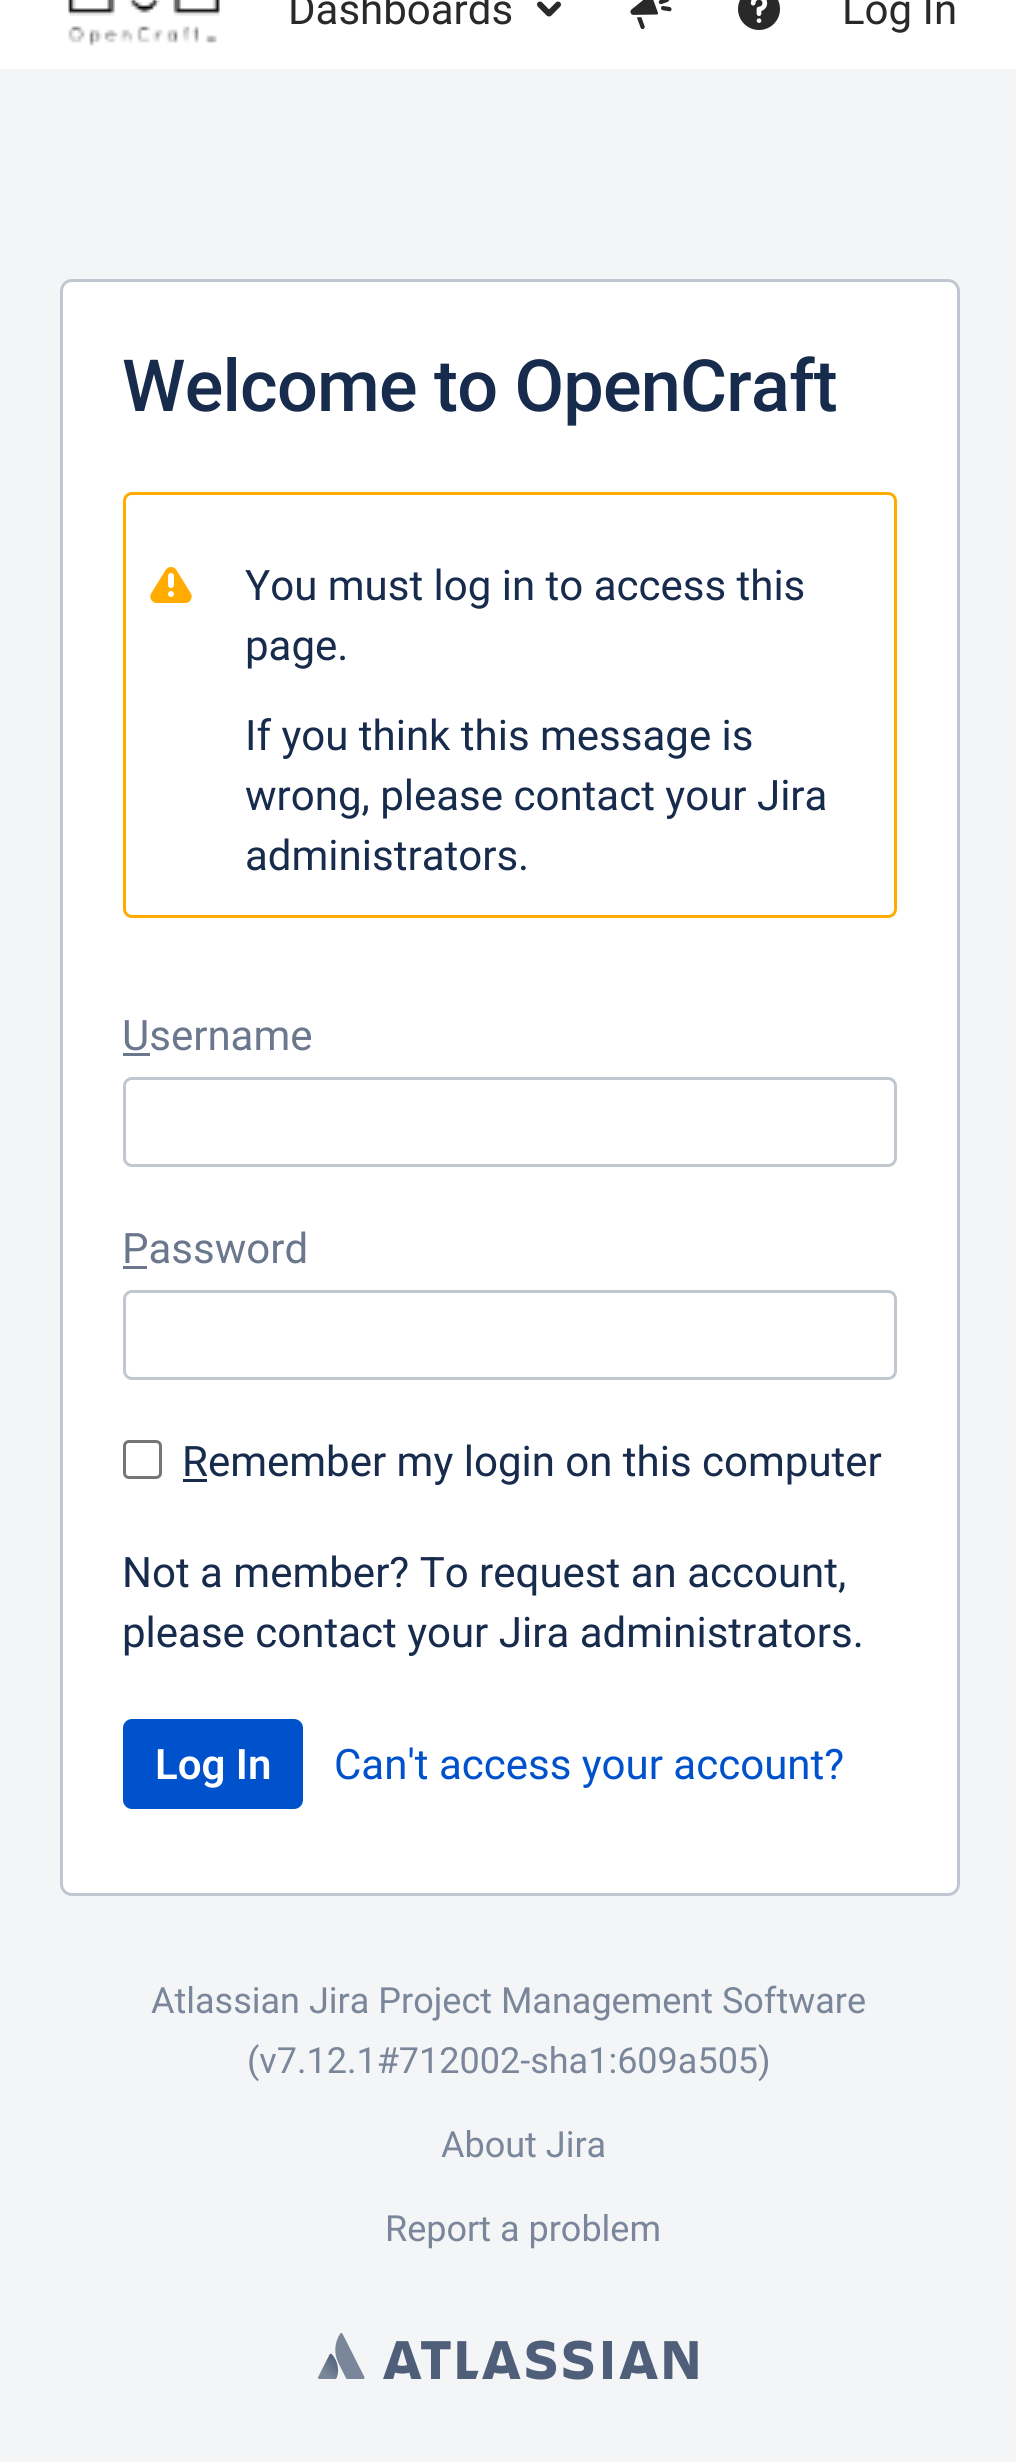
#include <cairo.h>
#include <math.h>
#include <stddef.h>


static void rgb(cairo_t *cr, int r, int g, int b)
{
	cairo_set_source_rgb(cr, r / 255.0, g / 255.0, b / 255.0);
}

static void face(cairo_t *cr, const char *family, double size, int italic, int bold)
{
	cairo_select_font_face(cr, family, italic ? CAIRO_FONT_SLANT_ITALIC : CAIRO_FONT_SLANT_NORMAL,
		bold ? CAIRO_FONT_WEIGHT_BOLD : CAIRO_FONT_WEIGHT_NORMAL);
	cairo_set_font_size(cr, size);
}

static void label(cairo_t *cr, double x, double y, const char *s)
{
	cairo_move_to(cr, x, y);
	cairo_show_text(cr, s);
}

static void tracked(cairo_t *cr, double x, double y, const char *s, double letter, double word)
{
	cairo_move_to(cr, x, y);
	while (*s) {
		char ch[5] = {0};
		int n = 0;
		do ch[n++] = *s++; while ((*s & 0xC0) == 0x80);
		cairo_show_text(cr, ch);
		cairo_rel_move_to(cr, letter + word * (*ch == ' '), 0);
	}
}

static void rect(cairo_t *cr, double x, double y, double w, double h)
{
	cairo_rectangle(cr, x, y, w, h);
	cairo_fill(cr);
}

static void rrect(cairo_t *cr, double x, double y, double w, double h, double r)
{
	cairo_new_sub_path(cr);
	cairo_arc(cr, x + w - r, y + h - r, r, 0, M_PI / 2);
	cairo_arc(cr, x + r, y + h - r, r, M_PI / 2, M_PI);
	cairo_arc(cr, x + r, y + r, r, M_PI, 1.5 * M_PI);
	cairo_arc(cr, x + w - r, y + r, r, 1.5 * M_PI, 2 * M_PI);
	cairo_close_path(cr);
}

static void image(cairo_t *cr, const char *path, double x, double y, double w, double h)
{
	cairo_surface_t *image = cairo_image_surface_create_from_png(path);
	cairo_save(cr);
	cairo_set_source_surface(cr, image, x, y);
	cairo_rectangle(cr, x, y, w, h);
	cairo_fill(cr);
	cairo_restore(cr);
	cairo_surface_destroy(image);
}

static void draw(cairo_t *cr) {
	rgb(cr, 244, 245, 247);
	cairo_paint(cr);
	rgb(cr, 255, 255, 255);
	rect(cr, 0, 0, 1016, 69);
	image(cr, "image0.png", 68, 0, 152, 46);
	face(cr, "Roboto", 42, 0, 0);
	rgb(cr, 41, 41, 41);
	label(cr, 288, 24, "Dashboards");
	image(cr, "image1.png", 537, 1, 24, 16);
	image(cr, "image2.png", 630, 0, 42, 30);
	image(cr, "image3.png", 738, 0, 42, 30);
	label(cr, 842, 24, "Log In");
	rgb(cr, 255, 255, 255);
	rrect(cr, 61.5, 280.5, 897, 1614, 10.5);
	cairo_fill_preserve(cr);
	rgb(cr, 193, 199, 208);
	cairo_set_line_width(cr, 3);
	cairo_stroke(cr);
	face(cr, "Roboto Medium", 72, 0, 0);
	rgb(cr, 23, 43, 77);
	tracked(cr, 122, 411, "Welcome to OpenCraft", -0.75, 0);
	rrect(cr, 124.5, 493.5, 771, 423, 7.5);
	rgb(cr, 255, 171, 0);
	cairo_stroke(cr);
	image(cr, "image4.png", 150, 567, 42, 36);
	face(cr, "Roboto", 42, 0, 0);
	rgb(cr, 23, 43, 77);
	label(cr, 245, 600, "You must log in to access this");
	label(cr, 245, 660, "page.");
	label(cr, 245, 750, "If you think this message is");
	label(cr, 245, 810, "wrong, please contact your Jira");
	label(cr, 245, 870, "administrators.");
	rgb(cr, 107, 119, 140);
	label(cr, 122, 1050, "Username");
	rect(cr, 123, 1053, 27, 3);
	rrect(cr, 124.5, 1078.5, 771, 87, 7.5);
	rgb(cr, 193, 199, 208);
	cairo_stroke(cr);
	rgb(cr, 107, 119, 140);
	label(cr, 122, 1263, "Password");
	rect(cr, 123, 1266, 24, 3);
	rrect(cr, 124.5, 1291.5, 771, 87, 7.5);
	rgb(cr, 193, 199, 208);
	cairo_stroke(cr);
	rrect(cr, 124.5, 1441.5, 36, 36, 4.5);
	rgb(cr, 118, 118, 118);
	cairo_stroke(cr);
	rgb(cr, 23, 43, 77);
	rect(cr, 183, 1479, 24, 3);
	label(cr, 182, 1476, "Remember my login on this computer");
	label(cr, 122, 1587, "Not a member? To request an account,");
	label(cr, 122, 1647, "please contact your Jira administrators.");
	rgb(cr, 0, 82, 204);
	rrect(cr, 123, 1719, 180, 90, 9);
	cairo_fill(cr);
	face(cr, "Roboto SemiBold", 42, 0, 0);
	rgb(cr, 255, 255, 255);
	label(cr, 155, 1779, "Log In");
	face(cr, "Roboto", 42, 0, 0);
	rgb(cr, 0, 82, 204);
	label(cr, 334, 1779, "Can't access your account?");
	face(cr, "Roboto", 36, 0, 0);
	rgb(cr, 122, 134, 154);
	label(cr, 151, 2013, "Atlassian Jira Project Management Software");
	label(cr, 247, 2073, "(v7.12.1#712002-sha1:609a505)");
	label(cr, 441, 2157, "About Jira");
	label(cr, 385, 2241, "Report a problem");
	image(cr, "image5.png", 318, 2333, 380, 47);
}

int main(void) {
	cairo_surface_t *surface = cairo_image_surface_create(CAIRO_FORMAT_RGB24, 1016, 2462);
	cairo_t *cr = cairo_create(surface);
	cairo_font_options_t *options = cairo_font_options_create();
	cairo_font_options_set_hint_metrics(options, CAIRO_HINT_METRICS_OFF);
	cairo_font_options_set_hint_style(options, CAIRO_HINT_STYLE_NONE);
	cairo_set_font_options(cr, options);
	cairo_set_miter_limit(cr, 4);
	draw(cr);
	cairo_surface_write_to_png(surface, "render.png");
	cairo_font_options_destroy(options);
	cairo_destroy(cr);
	cairo_surface_destroy(surface);
	return 0;
}
